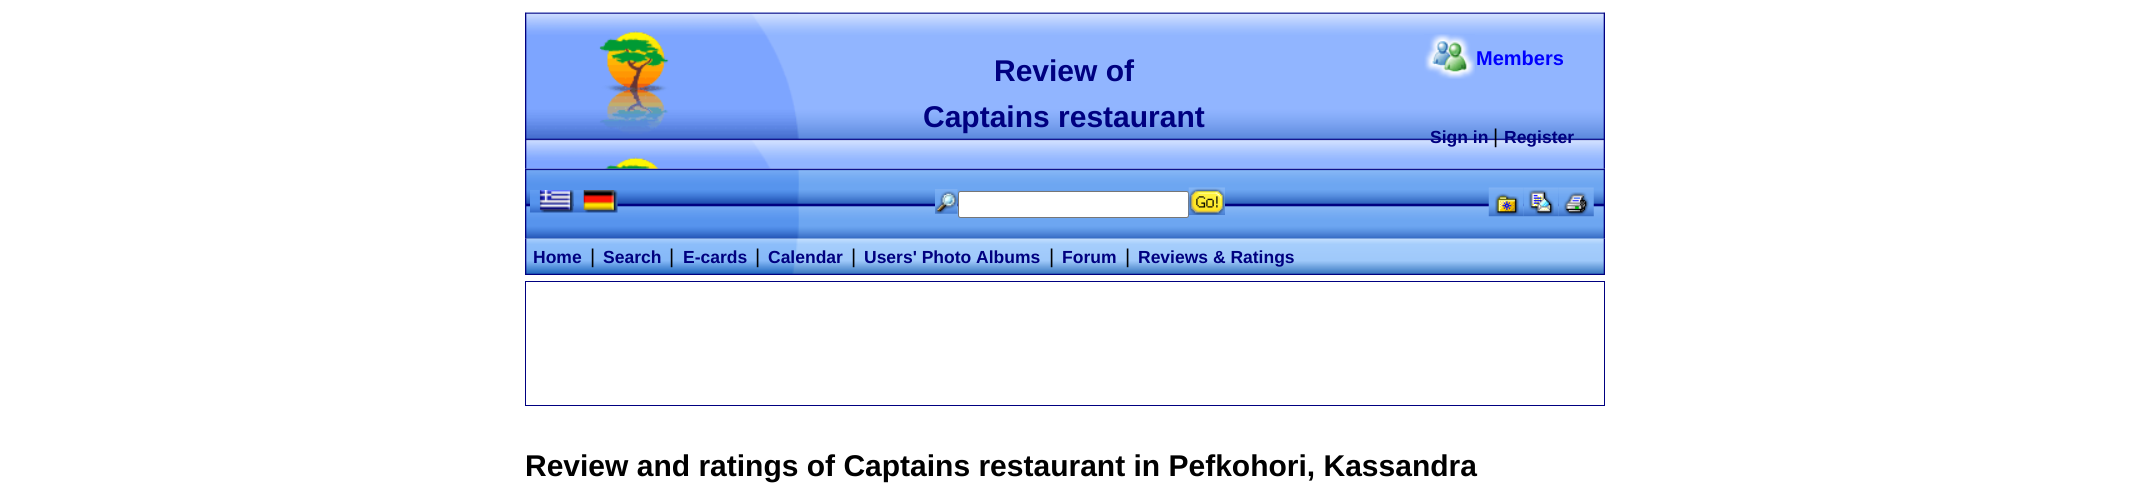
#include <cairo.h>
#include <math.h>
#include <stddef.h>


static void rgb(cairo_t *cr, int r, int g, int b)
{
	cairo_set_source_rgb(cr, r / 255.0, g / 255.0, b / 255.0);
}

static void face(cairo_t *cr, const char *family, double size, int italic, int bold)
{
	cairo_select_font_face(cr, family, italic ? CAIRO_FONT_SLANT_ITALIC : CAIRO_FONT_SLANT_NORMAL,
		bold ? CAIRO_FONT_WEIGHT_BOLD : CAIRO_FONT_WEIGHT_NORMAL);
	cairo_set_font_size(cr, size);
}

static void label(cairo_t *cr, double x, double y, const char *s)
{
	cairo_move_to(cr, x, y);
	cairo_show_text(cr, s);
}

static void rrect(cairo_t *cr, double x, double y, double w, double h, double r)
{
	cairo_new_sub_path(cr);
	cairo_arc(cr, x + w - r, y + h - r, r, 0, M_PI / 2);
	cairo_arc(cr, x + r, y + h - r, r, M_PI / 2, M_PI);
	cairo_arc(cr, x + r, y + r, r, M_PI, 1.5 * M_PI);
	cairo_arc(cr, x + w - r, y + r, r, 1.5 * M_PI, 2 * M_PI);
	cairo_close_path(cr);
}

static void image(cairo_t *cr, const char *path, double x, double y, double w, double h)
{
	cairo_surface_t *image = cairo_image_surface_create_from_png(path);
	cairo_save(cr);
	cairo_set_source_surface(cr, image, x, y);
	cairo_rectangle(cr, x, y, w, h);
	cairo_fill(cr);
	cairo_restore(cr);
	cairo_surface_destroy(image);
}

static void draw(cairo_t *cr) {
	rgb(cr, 255, 255, 255);
	cairo_paint(cr);
	image(cr, "image0.png", 525, 12, 1080, 157);
	face(cr, "Liberation Sans", 30, 0, 1);
	rgb(cr, 0, 0, 128);
	label(cr, 994, 81, "Review of");
	label(cr, 923, 127, "Captains restaurant");
	image(cr, "image1.png", 1424, 34, 51, 45);
	face(cr, "Liberation Sans", 20, 0, 1);
	rgb(cr, 0, 0, 255);
	label(cr, 1476, 65, "Members");
	face(cr, "Liberation Sans", 17.5, 0, 1);
	rgb(cr, 0, 0, 128);
	label(cr, 1430, 143, "Sign in");
	face(cr, "Liberation Sans", 20, 0, 0);
	rgb(cr, 0, 0, 0);
	label(cr, 1493, 143, "|");
	face(cr, "Liberation Sans", 17.5, 0, 1);
	rgb(cr, 0, 0, 128);
	label(cr, 1504, 143, "Register");
	image(cr, "image2.png", 525, 168, 1080, 71);
	image(cr, "image3.png", 530, 190, 44, 23);
	image(cr, "image4.png", 573, 190, 45, 23);
	image(cr, "image5.png", 935, 189, 23, 25);
	rgb(cr, 255, 255, 255);
	rrect(cr, 958.5, 191.5, 230, 26, 2);
	cairo_fill_preserve(cr);
	rgb(cr, 118, 118, 118);
	cairo_set_line_width(cr, 1);
	cairo_stroke(cr);
	image(cr, "image6.png", 1188, 187, 37, 28);
	image(cr, "image7.png", 1488, 187, 36, 30);
	image(cr, "image8.png", 1523, 187, 36, 30);
	image(cr, "image9.png", 1558, 187, 36, 30);
	image(cr, "image10.png", 525, 238, 1080, 37);
	rgb(cr, 0, 0, 128);
	label(cr, 533, 263, "Home");
	face(cr, "Liberation Sans", 20, 0, 0);
	rgb(cr, 0, 0, 0);
	label(cr, 590, 263, "|");
	face(cr, "Liberation Sans", 17.5, 0, 1);
	rgb(cr, 0, 0, 128);
	label(cr, 603, 263, "Search");
	face(cr, "Liberation Sans", 20, 0, 0);
	rgb(cr, 0, 0, 0);
	label(cr, 669, 263, "|");
	face(cr, "Liberation Sans", 17.5, 0, 1);
	rgb(cr, 0, 0, 128);
	label(cr, 683, 263, "E-cards");
	face(cr, "Liberation Sans", 20, 0, 0);
	rgb(cr, 0, 0, 0);
	label(cr, 755, 263, "|");
	face(cr, "Liberation Sans", 17.5, 0, 1);
	rgb(cr, 0, 0, 128);
	label(cr, 768, 263, "Calendar");
	face(cr, "Liberation Sans", 20, 0, 0);
	rgb(cr, 0, 0, 0);
	label(cr, 851, 263, "|");
	face(cr, "Liberation Sans", 17.5, 0, 1);
	rgb(cr, 0, 0, 128);
	label(cr, 864, 263, "Users' Photo Albums");
	face(cr, "Liberation Sans", 20, 0, 0);
	rgb(cr, 0, 0, 0);
	label(cr, 1049, 263, "|");
	face(cr, "Liberation Sans", 17.5, 0, 1);
	rgb(cr, 0, 0, 128);
	label(cr, 1062, 263, "Forum");
	face(cr, "Liberation Sans", 20, 0, 0);
	rgb(cr, 0, 0, 0);
	label(cr, 1125, 263, "|");
	face(cr, "Liberation Sans", 17.5, 0, 1);
	rgb(cr, 0, 0, 128);
	label(cr, 1138, 263, "Reviews & Ratings");
	cairo_rectangle(cr, 525.5, 281.5, 1079, 124);
	cairo_stroke(cr);
	face(cr, "Liberation Sans", 30, 0, 1);
	rgb(cr, 0, 0, 0);
	label(cr, 525, 476, "Review and ratings of Captains restaurant in Pefkohori, Kassandra");
}

int main(void) {
	cairo_surface_t *surface = cairo_image_surface_create(CAIRO_FORMAT_RGB24, 2130, 494);
	cairo_t *cr = cairo_create(surface);
	cairo_font_options_t *options = cairo_font_options_create();
	cairo_font_options_set_hint_metrics(options, CAIRO_HINT_METRICS_OFF);
	cairo_font_options_set_hint_style(options, CAIRO_HINT_STYLE_NONE);
	cairo_set_font_options(cr, options);
	cairo_set_miter_limit(cr, 4);
	draw(cr);
	cairo_surface_write_to_png(surface, "render.png");
	cairo_font_options_destroy(options);
	cairo_destroy(cr);
	cairo_surface_destroy(surface);
	return 0;
}
